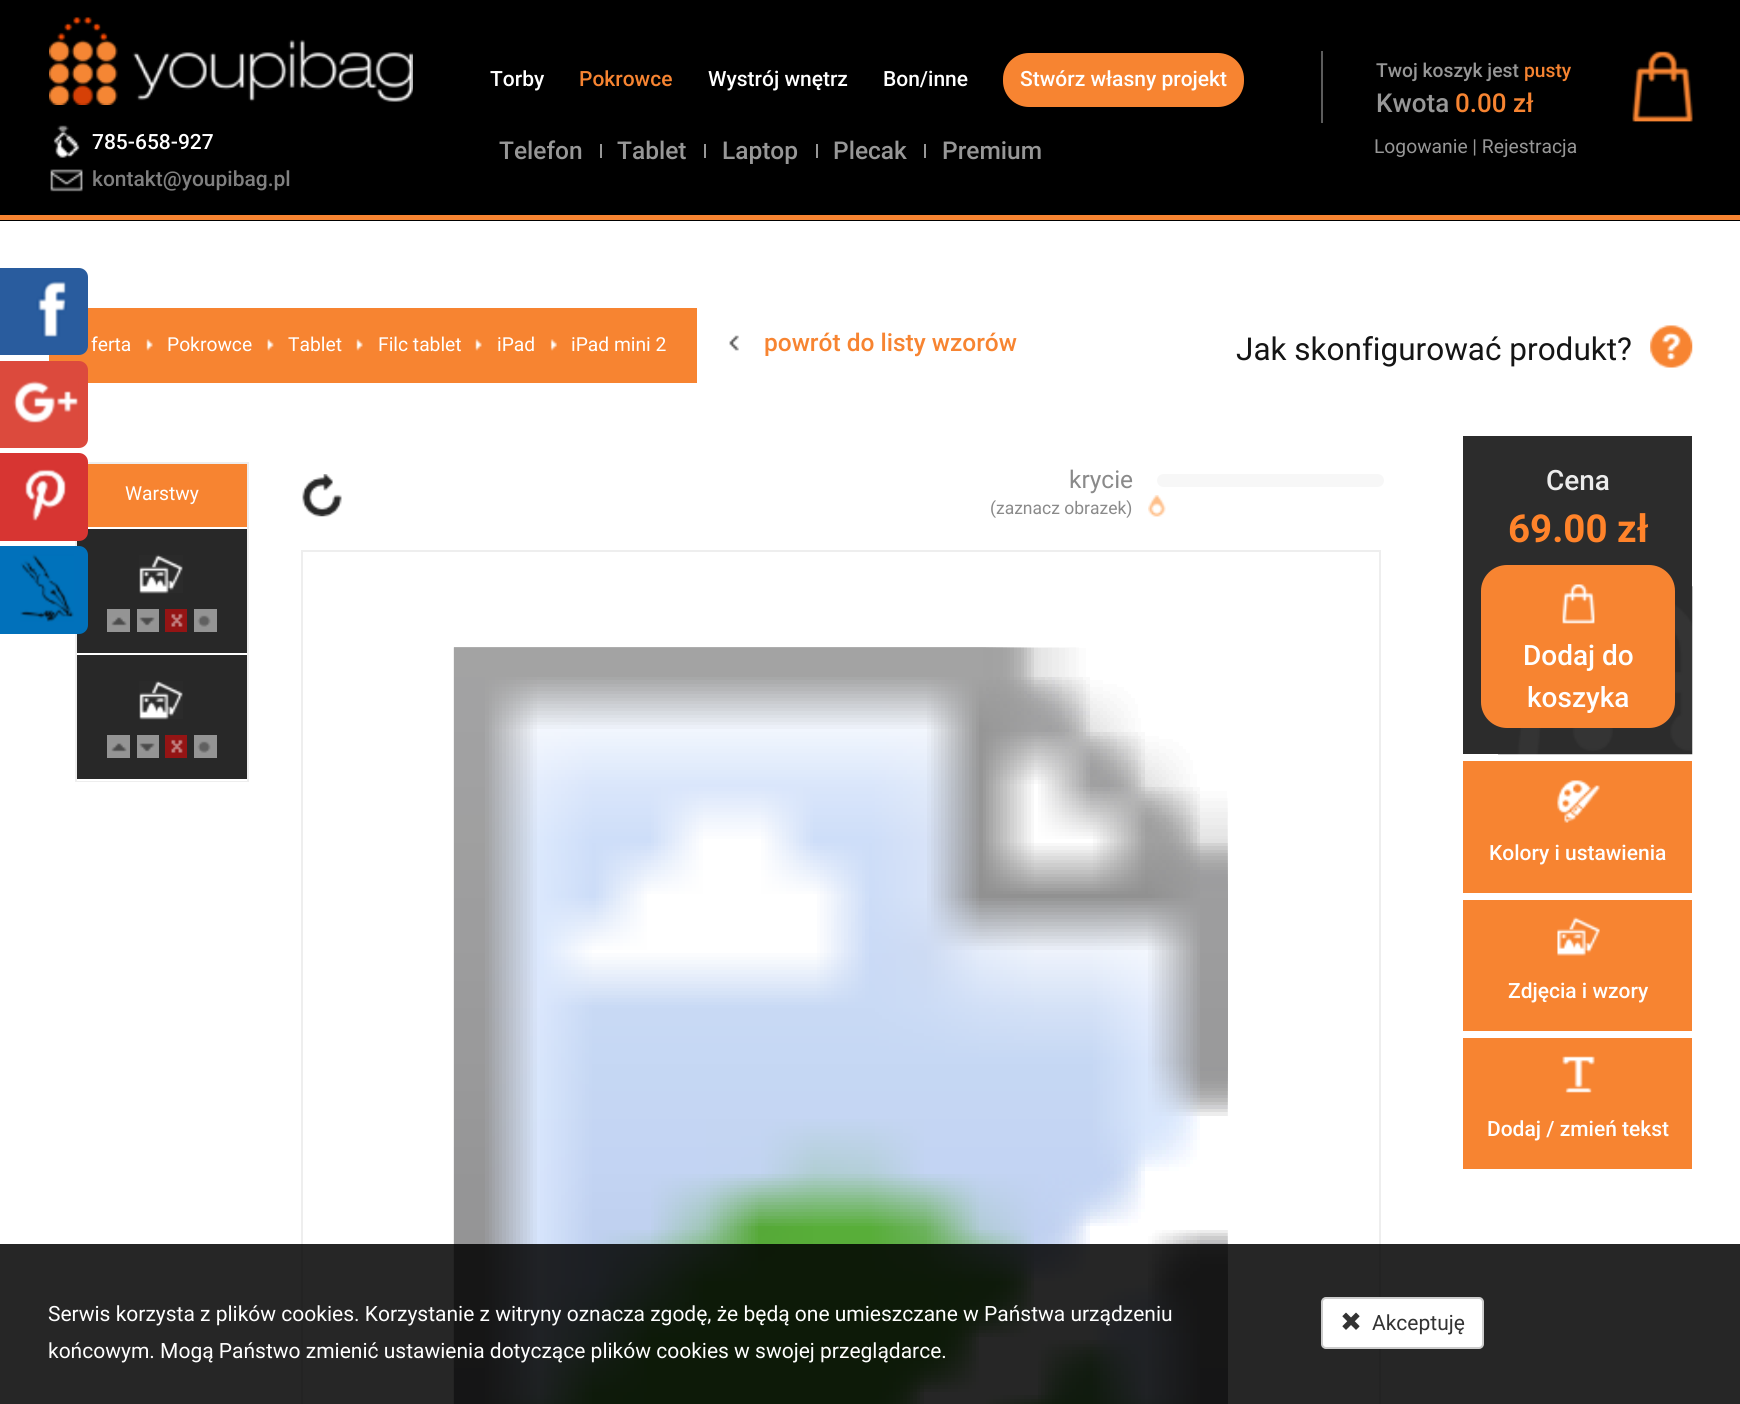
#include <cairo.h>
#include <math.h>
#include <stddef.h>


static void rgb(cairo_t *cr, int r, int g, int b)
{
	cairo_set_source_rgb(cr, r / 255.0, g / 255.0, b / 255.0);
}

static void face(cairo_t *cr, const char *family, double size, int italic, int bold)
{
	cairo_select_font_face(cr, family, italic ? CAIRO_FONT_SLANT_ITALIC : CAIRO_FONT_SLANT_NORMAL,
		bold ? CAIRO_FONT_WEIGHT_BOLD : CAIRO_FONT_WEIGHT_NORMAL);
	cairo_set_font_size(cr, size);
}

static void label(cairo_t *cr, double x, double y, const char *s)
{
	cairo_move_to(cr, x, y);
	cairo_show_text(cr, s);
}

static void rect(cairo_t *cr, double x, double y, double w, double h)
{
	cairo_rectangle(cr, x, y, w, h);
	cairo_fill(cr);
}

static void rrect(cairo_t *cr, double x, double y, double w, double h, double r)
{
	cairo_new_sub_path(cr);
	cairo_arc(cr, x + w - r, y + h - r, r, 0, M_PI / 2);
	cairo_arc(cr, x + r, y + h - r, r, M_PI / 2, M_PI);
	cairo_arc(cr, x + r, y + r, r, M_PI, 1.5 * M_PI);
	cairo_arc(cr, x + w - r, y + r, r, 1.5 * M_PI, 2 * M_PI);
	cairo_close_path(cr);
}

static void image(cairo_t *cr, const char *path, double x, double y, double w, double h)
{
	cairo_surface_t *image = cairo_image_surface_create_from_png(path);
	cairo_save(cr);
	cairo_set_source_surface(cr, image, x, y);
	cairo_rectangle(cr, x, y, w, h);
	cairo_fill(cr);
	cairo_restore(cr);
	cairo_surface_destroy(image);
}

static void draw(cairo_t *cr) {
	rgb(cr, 255, 255, 255);
	cairo_paint(cr);
	rgb(cr, 247, 132, 49);
	rect(cr, 49, 308, 648, 75);
	rgb(cr, 41, 92, 158);
	rrect(cr, -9, 268, 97, 87, 9);
	cairo_fill(cr);
	image(cr, "image0.png", 36, 280, 31, 57);
	rgb(cr, 220, 74, 61);
	rrect(cr, -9, 361, 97, 87, 9);
	cairo_fill(cr);
	image(cr, "image1.png", 13, 381, 66, 42);
	cairo_rectangle(cr, 76, 463, 172, 318);
	rgb(cr, 238, 238, 238);
	cairo_stroke(cr);
	rgb(cr, 40, 40, 40);
	rect(cr, 77, 529, 170, 124);
	rgb(cr, 215, 53, 50);
	rrect(cr, -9, 453, 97, 88, 9);
	cairo_fill(cr);
	image(cr, "image2.png", 25, 469, 41, 52);
	rgb(cr, 1, 113, 187);
	rrect(cr, -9, 546, 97, 88, 9);
	cairo_fill(cr);
	image(cr, "image3.png", 20, 554, 54, 68);
	rgb(cr, 0, 0, 0);
	rect(cr, 0, 0, 1740, 221);
	image(cr, "image4.png", 49, 17, 364, 88);
	image(cr, "image5.png", 53, 125, 27, 33);
	face(cr, "Roboto Medium", 21, 0, 0);
	rgb(cr, 255, 255, 255);
	label(cr, 92, 149, "785-658-927");
	image(cr, "image6.png", 50, 169, 33, 23);
	rgb(cr, 128, 128, 128);
	label(cr, 92, 186, "kontakt@youpibag.pl");
	rgb(cr, 255, 255, 255);
	label(cr, 490, 86, "Torby");
	rgb(cr, 247, 132, 49);
	label(cr, 579, 86, "Pokrowce");
	face(cr, "Roboto Medium", 24.5, 0, 0);
	rgb(cr, 151, 151, 151);
	label(cr, 499, 159, "Telefon");
	rect(cr, 600, 144, 2, 14);
	label(cr, 617, 159, "Tablet");
	rect(cr, 704, 144, 2, 14);
	label(cr, 722, 159, "Laptop");
	rect(cr, 816, 144, 2, 14);
	label(cr, 833, 159, "Plecak");
	rect(cr, 924, 144, 2, 14);
	label(cr, 942, 159, "Premium");
	face(cr, "Roboto Medium", 21, 0, 0);
	rgb(cr, 255, 255, 255);
	label(cr, 708, 86, "Wystrój wnętrz");
	label(cr, 883, 86, "Bon/inne");
	rgb(cr, 247, 132, 49);
	rrect(cr, 1003, 53, 241, 54, 26);
	cairo_fill(cr);
	rgb(cr, 255, 255, 255);
	label(cr, 1020, 86, "Stwórz własny projekt");
	image(cr, "image7.png", 1632, 51, 61, 71);
	rgb(cr, 92, 92, 92);
	rect(cr, 1321, 51, 2, 72);
	face(cr, "Roboto Medium", 19.25, 0, 0);
	rgb(cr, 151, 151, 151);
	label(cr, 1376, 77, "Twoj koszyk jest");
	rgb(cr, 247, 132, 49);
	label(cr, 1524, 77, "pusty");
	face(cr, "Roboto Medium", 26, 0, 0);
	rgb(cr, 151, 151, 151);
	label(cr, 1376, 112, "Kwota");
	rgb(cr, 247, 132, 49);
	label(cr, 1455, 112, "0.00 zł");
	face(cr, "Roboto", 19.25, 0, 0);
	rgb(cr, 151, 151, 151);
	label(cr, 1374, 153, "Logowanie | Rejestracja");
	rgb(cr, 247, 132, 49);
	rect(cr, 0, 215, 1740, 5);
	rgb(cr, 255, 255, 255);
	label(cr, 91, 351, "ferta");
	image(cr, "image8.png", 146, 339, 7, 12);
	label(cr, 167, 351, "Pokrowce");
	image(cr, "image9.png", 267, 339, 7, 12);
	label(cr, 288, 351, "Tablet");
	image(cr, "image10.png", 356, 339, 7, 12);
	label(cr, 378, 351, "Filc tablet");
	image(cr, "image8.png", 475, 339, 7, 12);
	label(cr, 497, 351, "iPad");
	image(cr, "image11.png", 550, 339, 7, 12);
	label(cr, 571, 351, "iPad mini 2");
	image(cr, "image12.png", 729, 335, 10, 16);
	face(cr, "Roboto Medium", 24.5, 0, 0);
	rgb(cr, 247, 132, 49);
	label(cr, 764, 351, "powrót do listy wzorów");
	image(cr, "image13.png", 1650, 325, 43, 43);
	face(cr, "Roboto", 31.5, 0, 0);
	rgb(cr, 21, 21, 21);
	label(cr, 1236, 360, "Jak skonfigurować produkt?");
	rgb(cr, 247, 132, 49);
	rect(cr, 88, 464, 159, 63);
	face(cr, "Roboto", 19.25, 0, 0);
	rgb(cr, 255, 255, 255);
	label(cr, 125, 500, "Warstwy");
	image(cr, "image14.png", 139, 554, 44, 40);
	rgb(cr, 148, 148, 148);
	rect(cr, 107, 609, 23, 23);
	image(cr, "image15.png", 111, 617, 16, 9);
	rect(cr, 137, 609, 22, 23);
	image(cr, "image16.png", 139, 617, 16, 9);
	rgb(cr, 148, 20, 20);
	rect(cr, 165, 609, 22, 23);
	image(cr, "image17.png", 171, 613, 12, 14);
	rgb(cr, 148, 148, 148);
	rect(cr, 194, 609, 23, 23);
	image(cr, "image18.png", 197, 615, 14, 12);
	rgb(cr, 40, 40, 40);
	rect(cr, 77, 655, 170, 124);
	image(cr, "image14.png", 139, 680, 44, 40);
	rgb(cr, 255, 255, 255);
	rect(cr, 77, 780, 170, 1);
	rgb(cr, 148, 148, 148);
	rect(cr, 107, 735, 23, 23);
	image(cr, "image15.png", 111, 743, 16, 9);
	rect(cr, 137, 735, 22, 23);
	image(cr, "image16.png", 139, 743, 16, 9);
	rgb(cr, 148, 20, 20);
	rect(cr, 165, 735, 22, 23);
	image(cr, "image17.png", 171, 739, 12, 14);
	rgb(cr, 148, 148, 148);
	rect(cr, 194, 735, 23, 23);
	image(cr, "image18.png", 197, 741, 14, 12);
	image(cr, "image19.png", 302, 474, 40, 43);
	face(cr, "Roboto", 24.5, 0, 0);
	rgb(cr, 138, 138, 138);
	label(cr, 1069, 488, "krycie");
	face(cr, "Roboto", 17.5, 0, 0);
	label(cr, 990, 514, "(zaznacz obrazek)");
	rgb(cr, 247, 247, 247);
	rrect(cr, 1157, 474, 227, 13, 6.5);
	cairo_fill(cr);
	image(cr, "image20.png", 1148, 495, 18, 22);
	cairo_rectangle(cr, 302, 551, 1078, 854);
	rgb(cr, 238, 238, 238);
	cairo_stroke(cr);
	image(cr, "image21.png", 453, 647, 775, 757);
	rgb(cr, 44, 44, 44);
	rect(cr, 1463, 436, 229, 318);
	image(cr, "image22.png", 1498, 586, 195, 169);
	face(cr, "Roboto Medium", 28, 0, 0);
	rgb(cr, 236, 236, 236);
	label(cr, 1546, 490, "Cena");
	face(cr, "Roboto", 38.5, 0, 1);
	rgb(cr, 255, 131, 42);
	label(cr, 1508, 542, "69.00 zł");
	rgb(cr, 247, 132, 49);
	rrect(cr, 1481, 565, 194, 163, 26);
	cairo_fill(cr);
	image(cr, "image23.png", 1562, 584, 33, 40);
	face(cr, "Roboto Medium", 28, 0, 0);
	rgb(cr, 255, 255, 255);
	label(cr, 1523, 665, "Dodaj do");
	label(cr, 1527, 707, "koszyka");
	rgb(cr, 247, 132, 49);
	rect(cr, 1463, 761, 229, 132);
	image(cr, "image24.png", 1557, 780, 43, 43);
	face(cr, "Roboto Medium", 21, 0, 0);
	rgb(cr, 255, 255, 255);
	label(cr, 1489, 860, "Kolory i ustawienia");
	rgb(cr, 247, 132, 49);
	rect(cr, 1463, 900, 229, 131);
	image(cr, "image25.png", 1557, 917, 43, 39);
	rgb(cr, 255, 255, 255);
	label(cr, 1508, 998, "Zdjęcia i wzory");
	rgb(cr, 247, 132, 49);
	rect(cr, 1463, 1038, 229, 131);
	image(cr, "image26.png", 1562, 1056, 33, 37);
	rgb(cr, 255, 255, 255);
	label(cr, 1487, 1136, "Dodaj / zmień tekst");
	cairo_set_source_rgba(cr, 0, 0, 0, 0.85);
	rect(cr, 0, 1244, 1740, 160);
	face(cr, "Roboto", 21, 0, 0);
	rgb(cr, 255, 255, 255);
	label(cr, 48, 1321, "Serwis korzysta z plików cookies. Korzystanie z witryny oznacza zgodę, że będą one umieszczane w Państwa urządzeniu");
	label(cr, 48, 1358, "końcowym. Mogą Państwo zmienić ustawienia dotyczące plików cookies w swojej przeglądarce.");
	rrect(cr, 1322, 1298, 161, 50, 4);
	cairo_fill_preserve(cr);
	rgb(cr, 204, 204, 204);
	cairo_stroke(cr);
	image(cr, "image27.png", 1342, 1312, 18, 18);
	rgb(cr, 51, 51, 51);
	label(cr, 1372, 1330, "Akceptuję");
}

int main(void) {
	cairo_surface_t *surface = cairo_image_surface_create(CAIRO_FORMAT_RGB24, 1740, 1404);
	cairo_t *cr = cairo_create(surface);
	cairo_font_options_t *options = cairo_font_options_create();
	cairo_font_options_set_hint_metrics(options, CAIRO_HINT_METRICS_OFF);
	cairo_font_options_set_hint_style(options, CAIRO_HINT_STYLE_NONE);
	cairo_set_font_options(cr, options);
	cairo_set_miter_limit(cr, 4);
	draw(cr);
	cairo_surface_write_to_png(surface, "render.png");
	cairo_font_options_destroy(options);
	cairo_destroy(cr);
	cairo_surface_destroy(surface);
	return 0;
}
